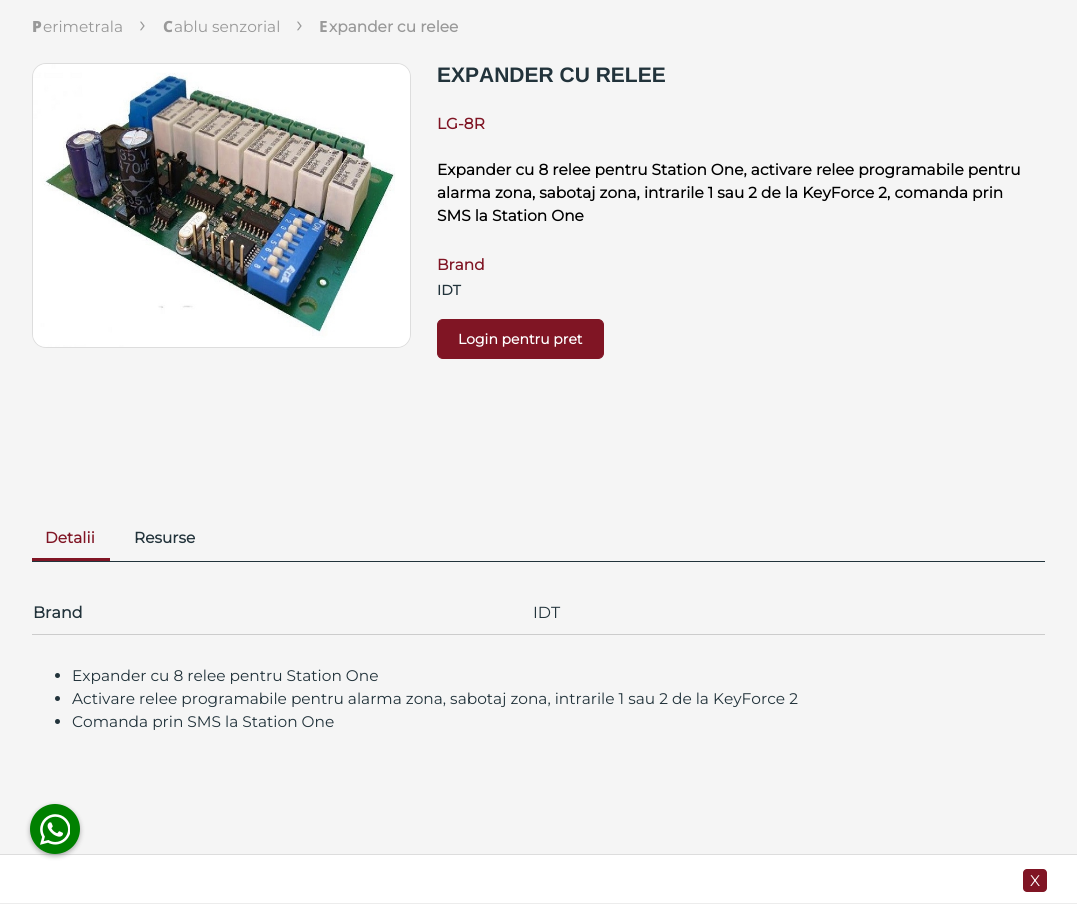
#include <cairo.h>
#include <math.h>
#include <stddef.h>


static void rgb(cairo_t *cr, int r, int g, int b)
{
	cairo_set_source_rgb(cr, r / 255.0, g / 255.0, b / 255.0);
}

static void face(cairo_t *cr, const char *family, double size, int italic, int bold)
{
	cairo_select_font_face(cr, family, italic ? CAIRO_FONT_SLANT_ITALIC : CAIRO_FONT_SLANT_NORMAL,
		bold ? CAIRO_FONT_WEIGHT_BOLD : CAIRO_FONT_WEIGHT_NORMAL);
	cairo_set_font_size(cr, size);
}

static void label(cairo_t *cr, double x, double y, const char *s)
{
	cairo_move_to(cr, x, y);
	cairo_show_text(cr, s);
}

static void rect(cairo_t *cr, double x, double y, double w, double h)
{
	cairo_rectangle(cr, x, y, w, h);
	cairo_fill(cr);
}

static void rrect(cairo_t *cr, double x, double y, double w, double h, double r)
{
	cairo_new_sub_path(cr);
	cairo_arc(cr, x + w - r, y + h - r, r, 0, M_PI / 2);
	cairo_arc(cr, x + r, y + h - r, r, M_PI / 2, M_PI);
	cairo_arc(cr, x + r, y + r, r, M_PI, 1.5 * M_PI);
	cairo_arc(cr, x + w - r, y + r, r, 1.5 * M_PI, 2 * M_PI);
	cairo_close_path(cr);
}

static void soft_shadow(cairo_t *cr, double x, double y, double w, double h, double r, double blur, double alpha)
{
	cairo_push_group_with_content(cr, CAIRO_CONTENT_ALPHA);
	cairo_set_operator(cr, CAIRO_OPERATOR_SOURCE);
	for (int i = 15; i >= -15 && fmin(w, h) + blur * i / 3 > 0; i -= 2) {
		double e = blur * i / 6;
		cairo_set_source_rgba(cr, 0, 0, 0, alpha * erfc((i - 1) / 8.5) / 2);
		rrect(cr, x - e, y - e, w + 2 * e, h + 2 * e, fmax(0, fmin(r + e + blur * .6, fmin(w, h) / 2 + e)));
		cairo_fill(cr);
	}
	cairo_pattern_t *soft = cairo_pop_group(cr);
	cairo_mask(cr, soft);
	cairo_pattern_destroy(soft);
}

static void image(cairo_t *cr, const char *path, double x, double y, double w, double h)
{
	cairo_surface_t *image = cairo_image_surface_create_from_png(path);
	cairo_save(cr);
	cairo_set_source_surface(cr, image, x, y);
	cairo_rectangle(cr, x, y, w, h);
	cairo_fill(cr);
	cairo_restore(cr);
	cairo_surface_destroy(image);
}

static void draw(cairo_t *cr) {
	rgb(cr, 245, 245, 245);
	cairo_paint(cr);
	face(cr, "Noto Sans Black", 15.4, 0, 0);
	rgb(cr, 153, 153, 153);
	label(cr, 32, 32, "P");
	face(cr, "Montserrat Thin", 15.4, 0, 0);
	label(cr, 43, 32, "erimetrala");
	face(cr, "Montserrat Thin", 23, 0, 0);
	label(cr, 139, 32, "›");
	face(cr, "Noto Sans ExtraBold", 15.4, 0, 0);
	label(cr, 163, 32, "C");
	face(cr, "Montserrat Thin", 15.4, 0, 0);
	label(cr, 174, 32, "ablu senzorial");
	face(cr, "Montserrat Thin", 23, 0, 0);
	label(cr, 296, 32, "›");
	face(cr, "Noto Sans", 15.4, 0, 1);
	label(cr, 319, 32, "E");
	face(cr, "Montserrat", 15.4, 0, 1);
	label(cr, 329, 32, "xpander cu relee");
	rrect(cr, 32.5, 63.5, 378, 284, 13.5);
	rgb(cr, 221, 221, 221);
	cairo_set_line_width(cr, 1);
	cairo_stroke(cr);
	image(cr, "image0.png", 33, 64, 377, 283);
	face(cr, "Liberation Sans", 21, 0, 1);
	rgb(cr, 34, 51, 59);
	label(cr, 437, 82, "EXPANDER CU RELEE");
	face(cr, "Montserrat", 15.4, 0, 1);
	rgb(cr, 128, 21, 36);
	label(cr, 437, 129, "LG-8R");
	rgb(cr, 0, 0, 0);
	label(cr, 437, 175, "Expander cu 8 relee pentru Station One, activare relee programabile pentru");
	label(cr, 437, 198, "alarma zona, sabotaj zona, intrarile 1 sau 2 de la KeyForce 2, comanda prin");
	label(cr, 437, 221, "SMS la Station One");
	rgb(cr, 128, 21, 36);
	label(cr, 437, 270, "Brand");
	face(cr, "Montserrat", 14, 0, 1);
	rgb(cr, 34, 51, 59);
	label(cr, 437, 295, "IDT");
	rgb(cr, 128, 21, 36);
	rrect(cr, 437.5, 319.5, 166, 39, 5.5);
	cairo_fill_preserve(cr);
	cairo_stroke(cr);
	rgb(cr, 255, 255, 255);
	label(cr, 458, 344, "Login pentru pret");
	rgb(cr, 128, 21, 36);
	rect(cr, 32, 558, 78, 3);
	face(cr, "Montserrat", 15.4, 0, 1);
	label(cr, 45, 543, "Detalii");
	rgb(cr, 34, 51, 59);
	label(cr, 134, 543, "Resurse");
	rect(cr, 32, 561, 1013, 1);
	rgb(cr, 204, 204, 204);
	rect(cr, 32, 634, 1013, 1);
	face(cr, "Montserrat", 16, 0, 1);
	rgb(cr, 34, 51, 59);
	label(cr, 33, 618, "Brand");
	face(cr, "Montserrat Thin", 16, 0, 0);
	label(cr, 533, 618, "IDT");
	cairo_new_path(cr);
	cairo_arc(cr, 57.5, 675.5, 2.5, 0, 2 * M_PI);
	cairo_fill(cr);
	face(cr, "Montserrat Thin", 15.4, 0, 0);
	label(cr, 72, 681, "Expander cu 8 relee pentru Station One");
	cairo_new_path(cr);
	cairo_arc(cr, 57.5, 698.5, 2.5, 0, 2 * M_PI);
	cairo_fill(cr);
	label(cr, 72, 704, "Activare relee programabile pentru alarma zona, sabotaj zona, intrarile 1 sau 2 de la KeyForce 2");
	cairo_new_path(cr);
	cairo_arc(cr, 57.5, 721.5, 2.5, 0, 2 * M_PI);
	cairo_fill(cr);
	label(cr, 72, 727, "Comanda prin SMS la Station One");
	rgb(cr, 255, 255, 255);
	rect(cr, 0, 855, 1077, 48);
	rgb(cr, 221, 221, 221);
	rect(cr, 0, 854, 1077, 1);
	rgb(cr, 0, 0, 0);
	soft_shadow(cr, 30, 806, 50, 50, 25, 2.5, 0.3);
	rgb(cr, 0, 128, 0);
	cairo_arc(cr, 55, 829, 25, 0, 2 * M_PI);
	cairo_fill(cr);
	image(cr, "image1.png", 40, 814, 30, 31);
	rgb(cr, 128, 21, 36);
	rrect(cr, 1023, 869, 24, 23, 4);
	cairo_fill(cr);
	rgb(cr, 255, 255, 255);
	label(cr, 1030, 886, "X");
	rgb(cr, 236, 236, 236);
	rect(cr, 0, 903, 1077, 1);
}

int main(void) {
	cairo_surface_t *surface = cairo_image_surface_create(CAIRO_FORMAT_RGB24, 1077, 904);
	cairo_t *cr = cairo_create(surface);
	cairo_font_options_t *options = cairo_font_options_create();
	cairo_font_options_set_hint_metrics(options, CAIRO_HINT_METRICS_OFF);
	cairo_font_options_set_hint_style(options, CAIRO_HINT_STYLE_NONE);
	cairo_set_font_options(cr, options);
	cairo_set_miter_limit(cr, 4);
	draw(cr);
	cairo_surface_write_to_png(surface, "render.png");
	cairo_font_options_destroy(options);
	cairo_destroy(cr);
	cairo_surface_destroy(surface);
	return 0;
}
